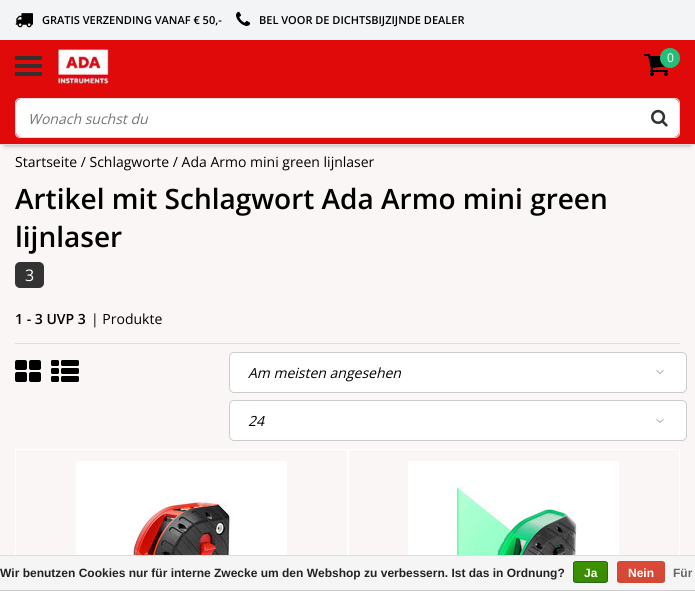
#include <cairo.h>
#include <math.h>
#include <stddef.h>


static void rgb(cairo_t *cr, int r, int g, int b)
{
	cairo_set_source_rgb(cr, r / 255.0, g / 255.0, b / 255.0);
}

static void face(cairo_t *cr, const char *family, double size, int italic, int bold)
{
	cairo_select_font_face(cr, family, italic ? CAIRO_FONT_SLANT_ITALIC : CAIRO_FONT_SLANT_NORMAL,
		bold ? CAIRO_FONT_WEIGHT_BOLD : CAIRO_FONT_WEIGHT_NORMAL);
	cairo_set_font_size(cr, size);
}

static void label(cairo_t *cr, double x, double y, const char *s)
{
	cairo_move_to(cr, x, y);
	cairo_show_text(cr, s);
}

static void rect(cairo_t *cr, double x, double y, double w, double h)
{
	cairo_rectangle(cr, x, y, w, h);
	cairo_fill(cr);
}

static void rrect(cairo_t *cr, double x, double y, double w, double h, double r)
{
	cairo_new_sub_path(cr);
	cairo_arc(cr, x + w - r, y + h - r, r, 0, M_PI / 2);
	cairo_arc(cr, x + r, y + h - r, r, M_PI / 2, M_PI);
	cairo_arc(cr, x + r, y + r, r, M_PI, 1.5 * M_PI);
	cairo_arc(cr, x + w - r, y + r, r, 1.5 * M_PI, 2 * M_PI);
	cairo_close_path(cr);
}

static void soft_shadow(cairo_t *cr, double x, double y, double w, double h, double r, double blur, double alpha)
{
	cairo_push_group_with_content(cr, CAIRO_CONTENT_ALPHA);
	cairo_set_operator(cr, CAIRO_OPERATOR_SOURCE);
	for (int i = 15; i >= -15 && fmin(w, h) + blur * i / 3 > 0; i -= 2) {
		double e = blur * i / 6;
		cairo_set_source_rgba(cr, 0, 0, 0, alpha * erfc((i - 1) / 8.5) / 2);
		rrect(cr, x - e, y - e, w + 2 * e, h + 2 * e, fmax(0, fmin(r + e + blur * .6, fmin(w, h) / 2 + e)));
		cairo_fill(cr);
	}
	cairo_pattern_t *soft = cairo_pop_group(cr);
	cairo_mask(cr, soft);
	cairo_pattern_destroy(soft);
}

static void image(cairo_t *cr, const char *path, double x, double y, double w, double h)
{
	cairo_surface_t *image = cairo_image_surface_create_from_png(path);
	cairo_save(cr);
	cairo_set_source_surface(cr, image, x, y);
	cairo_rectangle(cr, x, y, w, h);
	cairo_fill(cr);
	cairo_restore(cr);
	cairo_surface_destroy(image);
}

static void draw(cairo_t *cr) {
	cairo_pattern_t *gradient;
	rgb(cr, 251, 246, 246);
	cairo_paint(cr);
	rgb(cr, 243, 244, 246);
	rect(cr, 0, 0, 695, 40);
	image(cr, "image0.png", 15, 13, 18, 15);
	face(cr, "Open Sans SemiBold", 11, 0, 0);
	rgb(cr, 0, 0, 0);
	label(cr, 42, 24, "GRATIS VERZENDING VANAF € 50,-");
	image(cr, "image1.png", 236, 11, 15, 15);
	label(cr, 259, 24, "BEL VOOR DE DICHTSBIJZIJNDE DEALER");
	rgb(cr, 0, 0, 0);
	soft_shadow(cr, 5, 50, 685, 95, 0, 2.5, 0.4);
	rgb(cr, 225, 10, 10);
	rect(cr, 0, 40, 695, 104);
	rgb(cr, 221, 221, 221);
	rect(cr, 0, 144, 695, 1);
	rgb(cr, 52, 49, 47);
	rect(cr, 15, 56, 27, 4);
	rect(cr, 15, 64, 27, 4);
	rect(cr, 15, 72, 27, 4);
	image(cr, "image2.png", 57, 48, 52, 36);
	image(cr, "image3.png", 644, 54, 24, 22);
	rgb(cr, 35, 191, 121);
	cairo_arc(cr, 670, 58, 10, 0, 2 * M_PI);
	cairo_fill(cr);
	face(cr, "Open Sans", 12, 0, 0);
	rgb(cr, 255, 255, 255);
	label(cr, 667, 62, "0");
	rrect(cr, 15.5, 98.5, 664, 39, 4.5);
	rgb(cr, 221, 221, 221);
	cairo_set_line_width(cr, 1);
	cairo_stroke(cr);
	rgb(cr, 255, 255, 255);
	rrect(cr, 16, 99, 663, 38, 5);
	cairo_fill(cr);
	face(cr, "Open Sans", 14, 1, 0);
	rgb(cr, 117, 117, 117);
	label(cr, 28, 124, "Wonach suchst du");
	image(cr, "image4.png", 651, 109, 17, 18);
	face(cr, "Open Sans", 14, 0, 0);
	rgb(cr, 0, 0, 0);
	label(cr, 15, 167, "Startseite / Schlagworte / Ada Armo mini green lijnlaser");
	face(cr, "Open Sans SemiBold", 28, 0, 0);
	label(cr, 15, 209, "Artikel mit Schlagwort Ada Armo mini green");
	label(cr, 15, 247, "lijnlaser");
	rgb(cr, 51, 51, 51);
	rrect(cr, 15, 262, 29, 26, 5);
	cairo_fill(cr);
	face(cr, "Open Sans", 16, 0, 0);
	rgb(cr, 255, 255, 255);
	label(cr, 25, 281, "3");
	face(cr, "Open Sans SemiBold", 14, 0, 0);
	rgb(cr, 0, 0, 0);
	label(cr, 15, 324, "1 - 3 UVP 3");
	face(cr, "Open Sans", 14, 0, 0);
	label(cr, 91, 324, "| Produkte");
	rgb(cr, 221, 221, 221);
	rect(cr, 15, 343, 665, 1);
	image(cr, "image5.png", 15, 360, 26, 22);
	image(cr, "image6.png", 51, 360, 28, 22);
	rgb(cr, 255, 255, 255);
	rrect(cr, 229, 352, 458, 41, 5);
	cairo_fill(cr);
	image(cr, "image7.png", 656, 370, 8, 4);
	rrect(cr, 229.5, 352.5, 457, 40, 4.5);
	rgb(cr, 204, 204, 204);
	cairo_stroke(cr);
	face(cr, "Open Sans", 14, 1, 0);
	rgb(cr, 0, 0, 0);
	label(cr, 248, 378, "Am meisten angesehen");
	rgb(cr, 255, 255, 255);
	rrect(cr, 229, 400, 458, 41, 5);
	cairo_fill(cr);
	image(cr, "image7.png", 656, 419, 8, 4);
	rrect(cr, 229.5, 400.5, 457, 40, 4.5);
	rgb(cr, 204, 204, 204);
	cairo_stroke(cr);
	rgb(cr, 0, 0, 0);
	label(cr, 248, 426, "24");
	cairo_rectangle(cr, 15.5, 449.5, 332, 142);
	rgb(cr, 255, 255, 255);
	cairo_stroke(cr);
	image(cr, "image8.png", 76, 461, 211, 94);
	cairo_rectangle(cr, 348.5, 449.5, 331, 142);
	cairo_stroke(cr);
	image(cr, "image9.png", 408, 461, 211, 94);
	rgb(cr, 245, 245, 245);
	rect(cr, 0, 556, 695, 34);
	rgb(cr, 221, 221, 221);
	rect(cr, 0, 555, 695, 1);
	rgb(cr, 204, 204, 204);
	rect(cr, 0, 590, 695, 1);
	face(cr, "Liberation Sans", 12, 0, 1);
	rgb(cr, 34, 34, 34);
	label(cr, 0, 577, "Wir benutzen Cookies nur für interne Zwecke um den Webshop zu verbessern. Ist das in Ordnung?");
	cairo_save(cr);
	rrect(cr, 573, 561, 35, 22, 3);
	cairo_clip(cr);
	gradient = cairo_pattern_create_linear(591, 562, 591, 582);
	cairo_pattern_add_color_stop_rgba(gradient, 0, 0.235, 0.576, 0, 1);
	cairo_pattern_add_color_stop_rgba(gradient, 1, 0.224, 0.541, 0, 1);
	cairo_set_source(cr, gradient);
	cairo_pattern_destroy(gradient);
	rect(cr, 573, 562, 35, 20);
	cairo_restore(cr);
	rrect(cr, 573.5, 561.5, 34, 21, 2.5);
	rgb(cr, 41, 105, 29);
	cairo_stroke(cr);
	rgb(cr, 255, 255, 255);
	label(cr, 584, 577, "Ja");
	cairo_save(cr);
	rrect(cr, 617, 561, 48, 22, 3);
	cairo_clip(cr);
	gradient = cairo_pattern_create_linear(641, 562, 641, 582);
	cairo_pattern_add_color_stop_rgba(gradient, 0, 0.863, 0.29, 0.22, 1);
	cairo_pattern_add_color_stop_rgba(gradient, 1, 0.82, 0.282, 0.212, 1);
	cairo_set_source(cr, gradient);
	cairo_pattern_destroy(gradient);
	rect(cr, 617, 562, 48, 20);
	cairo_restore(cr);
	rrect(cr, 617.5, 561.5, 47, 21, 2.5);
	rgb(cr, 209, 72, 54);
	cairo_stroke(cr);
	rgb(cr, 255, 255, 255);
	label(cr, 628, 577, "Nein");
	rgb(cr, 102, 102, 102);
	label(cr, 673, 577, "Für");
}

int main(void) {
	cairo_surface_t *surface = cairo_image_surface_create(CAIRO_FORMAT_RGB24, 695, 591);
	cairo_t *cr = cairo_create(surface);
	cairo_font_options_t *options = cairo_font_options_create();
	cairo_font_options_set_hint_metrics(options, CAIRO_HINT_METRICS_OFF);
	cairo_font_options_set_hint_style(options, CAIRO_HINT_STYLE_NONE);
	cairo_set_font_options(cr, options);
	cairo_set_miter_limit(cr, 4);
	draw(cr);
	cairo_surface_write_to_png(surface, "render.png");
	cairo_font_options_destroy(options);
	cairo_destroy(cr);
	cairo_surface_destroy(surface);
	return 0;
}
